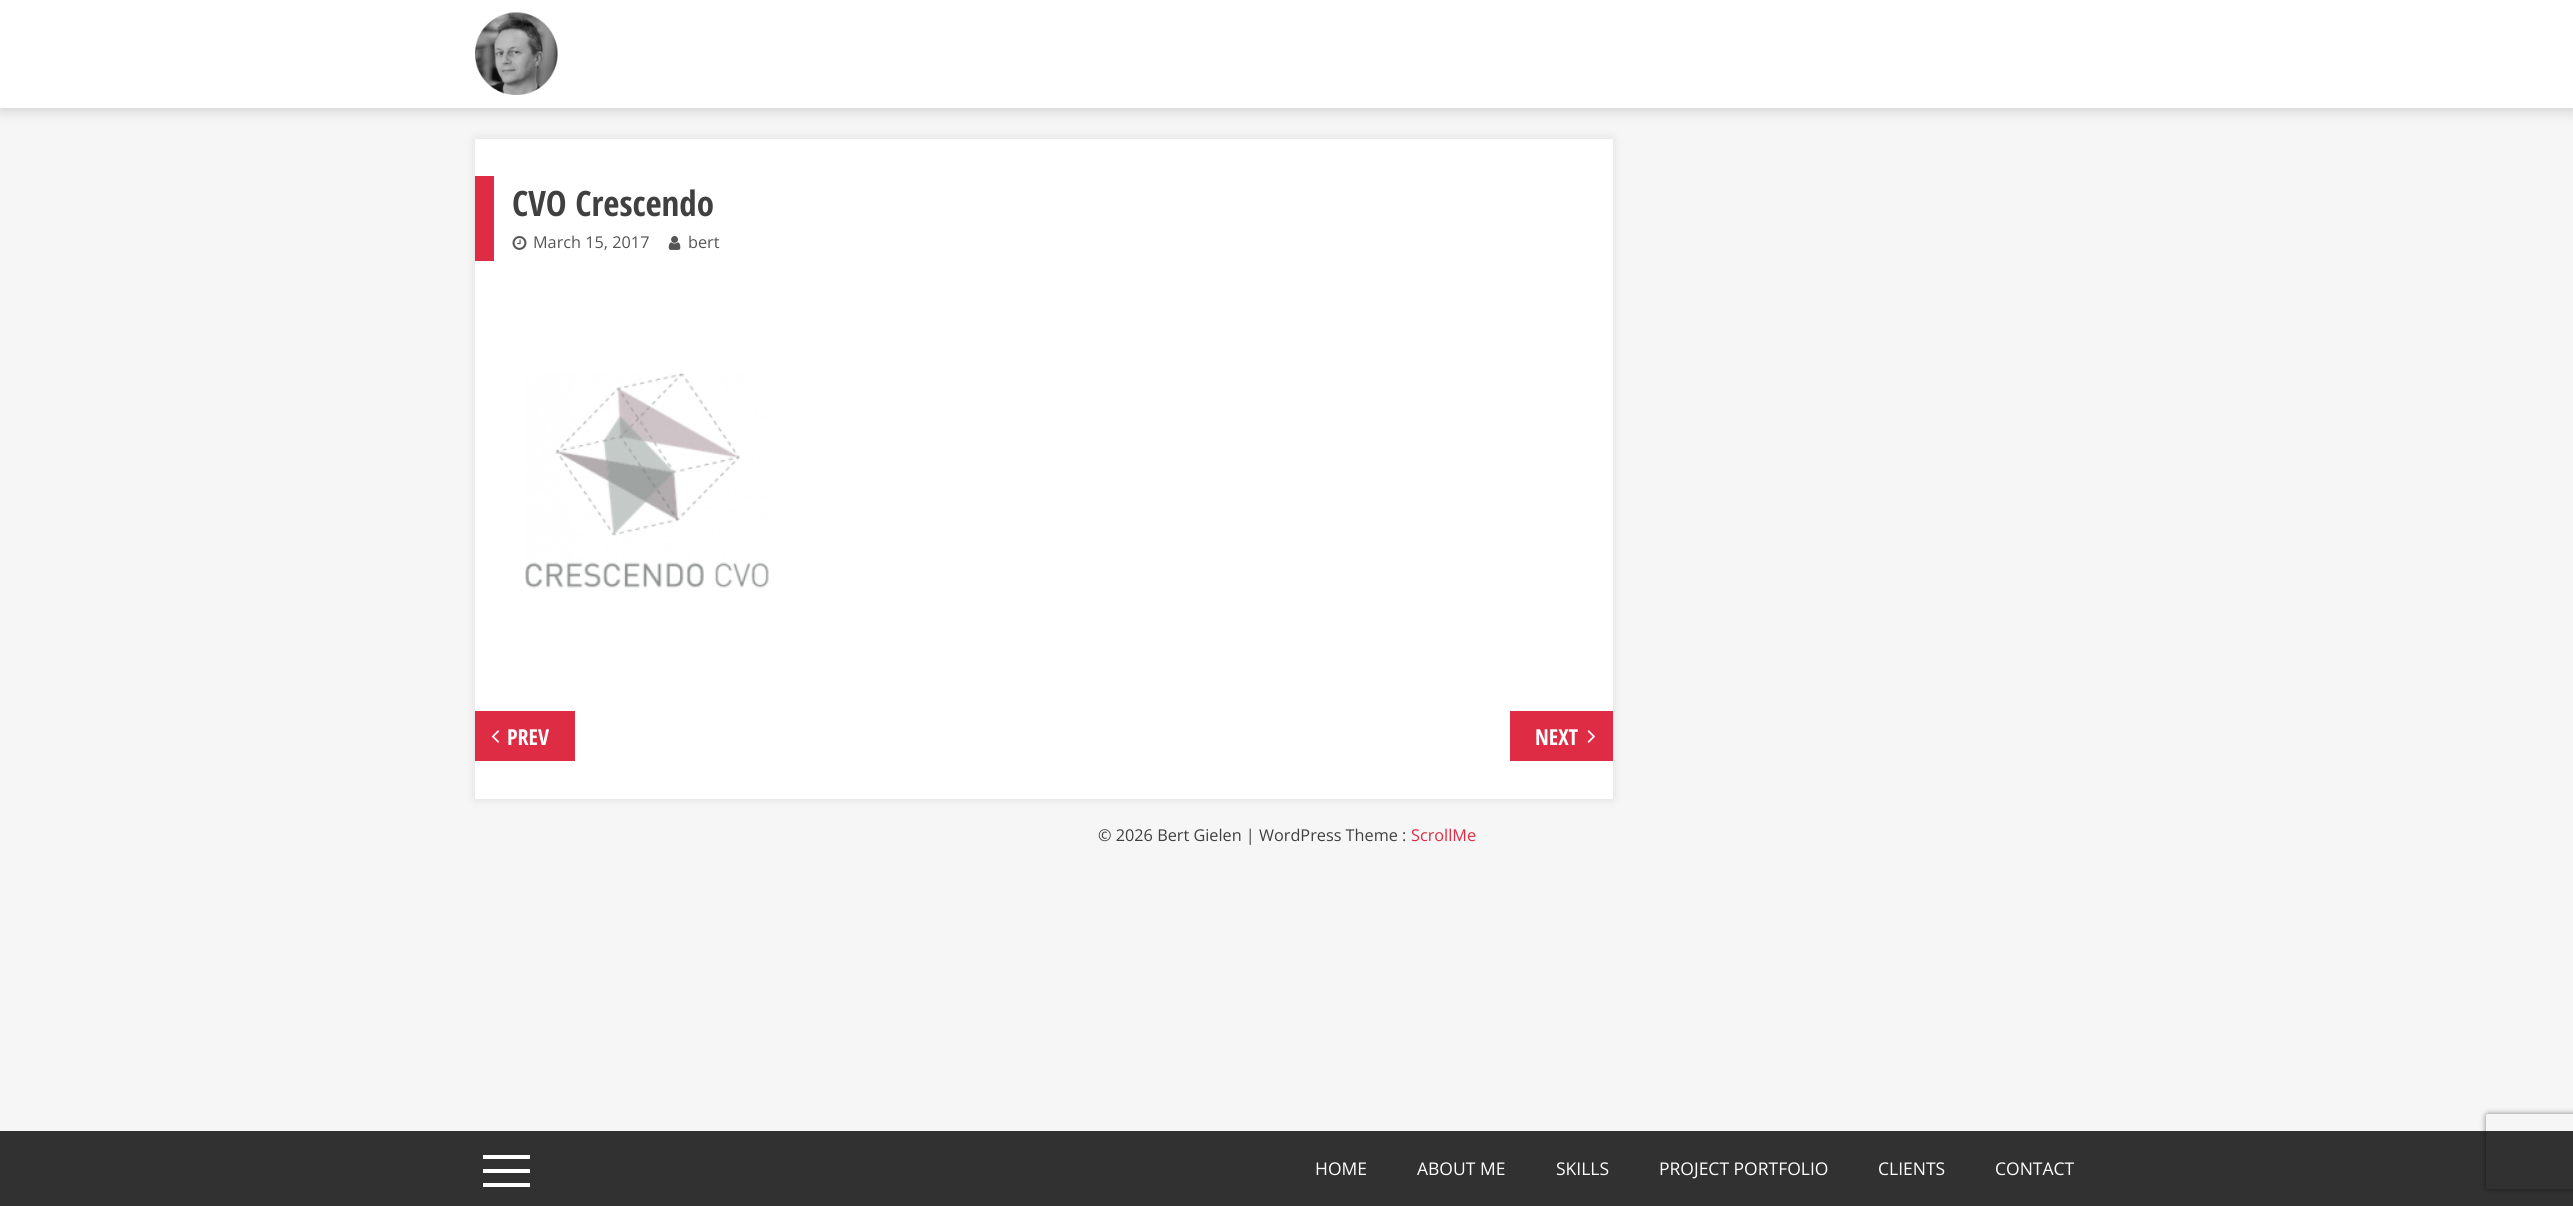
#include <cairo.h>
#include <math.h>
#include <stddef.h>


static void rgb(cairo_t *cr, int r, int g, int b)
{
	cairo_set_source_rgb(cr, r / 255.0, g / 255.0, b / 255.0);
}

static void face(cairo_t *cr, const char *family, double size, int italic, int bold)
{
	cairo_select_font_face(cr, family, italic ? CAIRO_FONT_SLANT_ITALIC : CAIRO_FONT_SLANT_NORMAL,
		bold ? CAIRO_FONT_WEIGHT_BOLD : CAIRO_FONT_WEIGHT_NORMAL);
	cairo_set_font_size(cr, size);
}

static void label(cairo_t *cr, double x, double y, const char *s)
{
	cairo_move_to(cr, x, y);
	cairo_show_text(cr, s);
}

static void rect(cairo_t *cr, double x, double y, double w, double h)
{
	cairo_rectangle(cr, x, y, w, h);
	cairo_fill(cr);
}

static void rrect(cairo_t *cr, double x, double y, double w, double h, double r)
{
	cairo_new_sub_path(cr);
	cairo_arc(cr, x + w - r, y + h - r, r, 0, M_PI / 2);
	cairo_arc(cr, x + r, y + h - r, r, M_PI / 2, M_PI);
	cairo_arc(cr, x + r, y + r, r, M_PI, 1.5 * M_PI);
	cairo_arc(cr, x + w - r, y + r, r, 1.5 * M_PI, 2 * M_PI);
	cairo_close_path(cr);
}

static void soft_shadow(cairo_t *cr, double x, double y, double w, double h, double r, double blur, double alpha)
{
	cairo_push_group_with_content(cr, CAIRO_CONTENT_ALPHA);
	cairo_set_operator(cr, CAIRO_OPERATOR_SOURCE);
	for (int i = 15; i >= -15 && fmin(w, h) + blur * i / 3 > 0; i -= 2) {
		double e = blur * i / 6;
		cairo_set_source_rgba(cr, 0, 0, 0, alpha * erfc((i - 1) / 8.5) / 2);
		rrect(cr, x - e, y - e, w + 2 * e, h + 2 * e, fmax(0, fmin(r + e + blur * .6, fmin(w, h) / 2 + e)));
		cairo_fill(cr);
	}
	cairo_pattern_t *soft = cairo_pop_group(cr);
	cairo_mask(cr, soft);
	cairo_pattern_destroy(soft);
}

static void image(cairo_t *cr, const char *path, double x, double y, double w, double h)
{
	cairo_surface_t *image = cairo_image_surface_create_from_png(path);
	cairo_save(cr);
	cairo_set_source_surface(cr, image, x, y);
	cairo_rectangle(cr, x, y, w, h);
	cairo_fill(cr);
	cairo_restore(cr);
	cairo_surface_destroy(image);
}

static void draw(cairo_t *cr) {
	rgb(cr, 246, 246, 246);
	cairo_paint(cr);
	rgb(cr, 0, 0, 0);
	soft_shadow(cr, 0, 1, 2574, 108, 0, 7.5, 0.2);
	rgb(cr, 255, 255, 255);
	rect(cr, 0, 0, 2573, 108);
	image(cr, "image0.png", 475, 12, 83, 83);
	rgb(cr, 0, 0, 0);
	soft_shadow(cr, 475, 139, 1138, 660, 0, 5, 0.1);
	rgb(cr, 255, 255, 255);
	rect(cr, 475, 139, 1138, 660);
	rgb(cr, 223, 44, 69);
	rect(cr, 475, 176, 19, 85);
	face(cr, "Open Sans Condensed", 35, 0, 1);
	rgb(cr, 64, 64, 64);
	label(cr, 512, 216, "CVO Crescendo");
	image(cr, "image1.png", 512, 236, 15, 14);
	face(cr, "Open Sans", 16.25, 0, 0);
	rgb(cr, 85, 85, 85);
	label(cr, 533, 248, "March 15, 2017");
	image(cr, "image2.png", 668, 236, 13, 14);
	label(cr, 688, 248, "bert");
	image(cr, "image3.png", 525, 372, 244, 216);
	rgb(cr, 223, 44, 69);
	rect(cr, 475, 711, 100, 50);
	image(cr, "image4.png", 491, 730, 9, 13);
	face(cr, "Open Sans Condensed", 22, 0, 1);
	rgb(cr, 255, 255, 255);
	label(cr, 507, 745, "PREV");
	rgb(cr, 223, 44, 69);
	rect(cr, 1510, 711, 103, 50);
	rgb(cr, 255, 255, 255);
	label(cr, 1535, 745, "NEXT");
	image(cr, "image5.png", 1587, 730, 8, 13);
	face(cr, "Open Sans", 16.25, 0, 0);
	rgb(cr, 64, 64, 64);
	label(cr, 1098, 841, "© 2026 Bert Gielen | WordPress Theme :");
	rgb(cr, 223, 44, 69);
	label(cr, 1411, 841, "ScrollMe");
	cairo_save(cr);
	cairo_set_fill_rule(cr, CAIRO_FILL_RULE_EVEN_ODD);
	cairo_new_path(cr);
	cairo_move_to(cr, 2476, 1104);
	cairo_line_to(cr, 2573, 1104);
	cairo_line_to(cr, 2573, 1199);
	cairo_line_to(cr, 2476, 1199);
	cairo_close_path(cr);
	cairo_move_to(cr, 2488.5, 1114);
	cairo_line_to(cr, 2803.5, 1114);
	cairo_curve_to(cr, 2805, 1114, 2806, 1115, 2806, 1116.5);
	cairo_line_to(cr, 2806, 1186.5);
	cairo_curve_to(cr, 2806, 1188, 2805, 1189, 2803.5, 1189);
	cairo_line_to(cr, 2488.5, 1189);
	cairo_curve_to(cr, 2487, 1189, 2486, 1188, 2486, 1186.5);
	cairo_line_to(cr, 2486, 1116.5);
	cairo_curve_to(cr, 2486, 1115, 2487, 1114, 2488.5, 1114);
	cairo_close_path(cr);
	cairo_clip(cr);
	rgb(cr, 128, 128, 128);
	soft_shadow(cr, 2486, 1114, 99, 75, 2.5, 3, 1);
	cairo_restore(cr);
	cairo_set_source_rgba(cr, 0, 0, 0, 0.8);
	rect(cr, 0, 1131, 2573, 75);
	rgb(cr, 255, 255, 255);
	rect(cr, 483, 1155, 47, 4);
	rect(cr, 483, 1169, 47, 4);
	rect(cr, 483, 1183, 47, 4);
	face(cr, "Open Sans", 17.5, 0, 0);
	label(cr, 1315, 1175, "HOME");
	label(cr, 1417, 1175, "ABOUT ME");
	label(cr, 1556, 1175, "SKILLS");
	label(cr, 1659, 1175, "PROJECT PORTFOLIO");
	label(cr, 1878, 1175, "CLIENTS");
	label(cr, 1995, 1175, "CONTACT");
}

int main(void) {
	cairo_surface_t *surface = cairo_image_surface_create(CAIRO_FORMAT_RGB24, 2573, 1206);
	cairo_t *cr = cairo_create(surface);
	cairo_font_options_t *options = cairo_font_options_create();
	cairo_font_options_set_hint_metrics(options, CAIRO_HINT_METRICS_OFF);
	cairo_font_options_set_hint_style(options, CAIRO_HINT_STYLE_NONE);
	cairo_set_font_options(cr, options);
	cairo_set_miter_limit(cr, 4);
	draw(cr);
	cairo_surface_write_to_png(surface, "render.png");
	cairo_font_options_destroy(options);
	cairo_destroy(cr);
	cairo_surface_destroy(surface);
	return 0;
}
